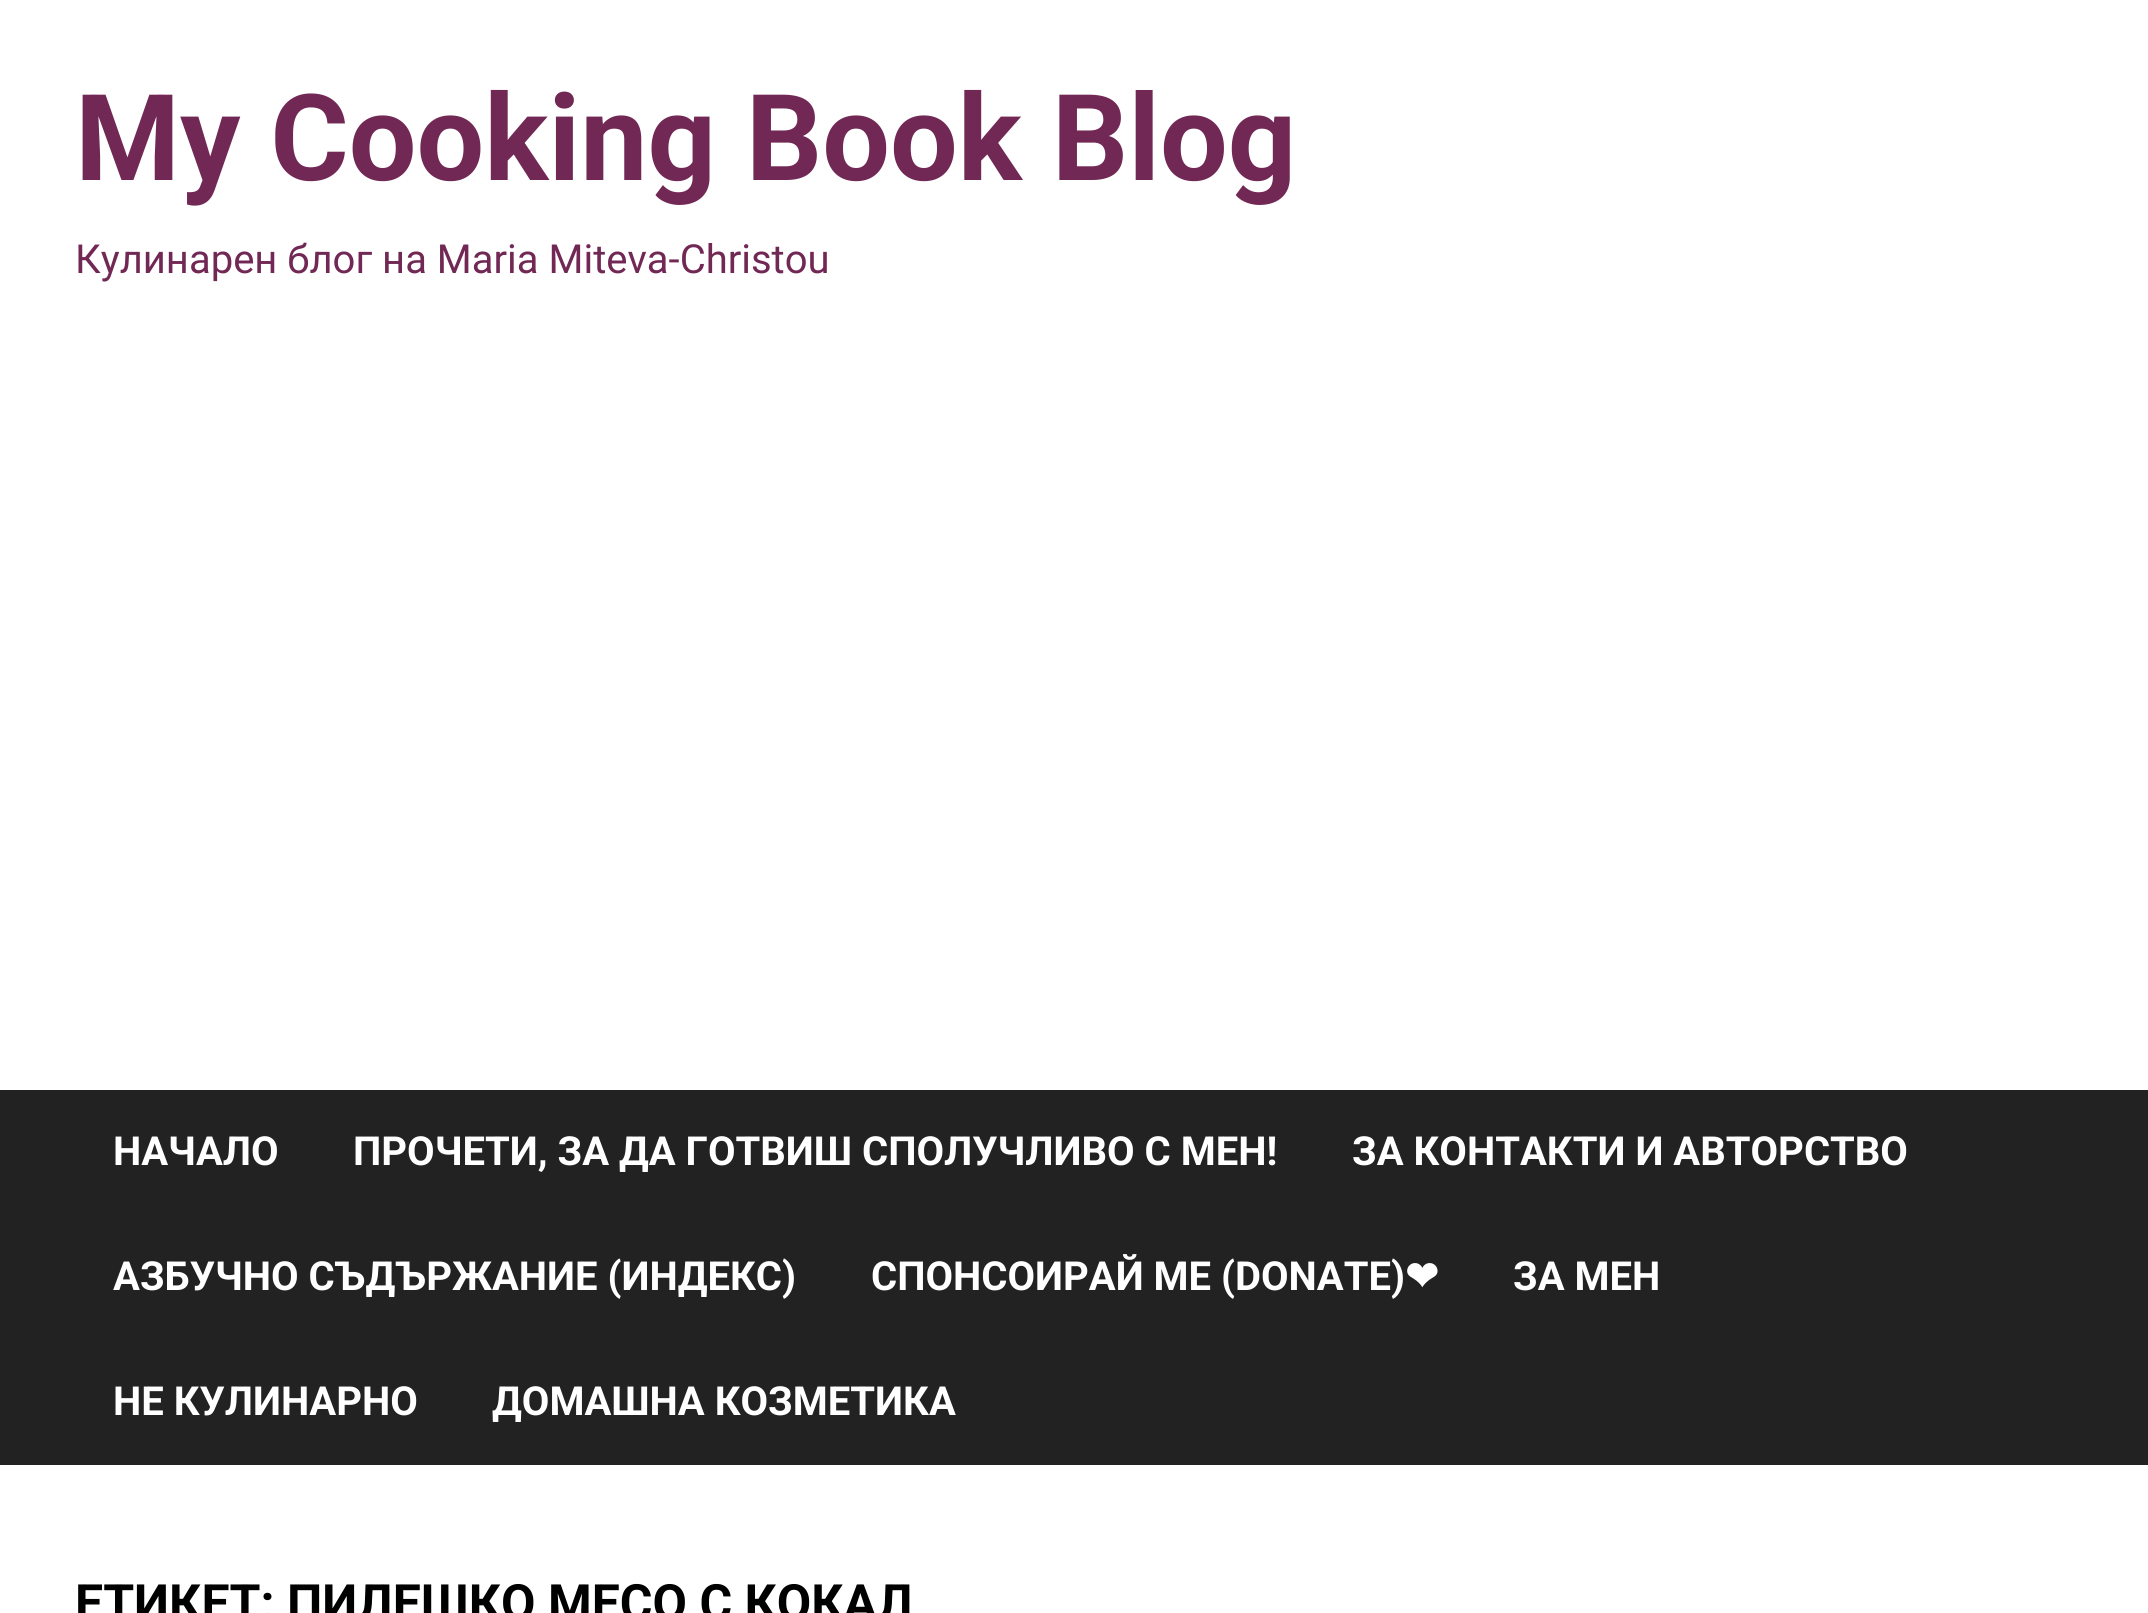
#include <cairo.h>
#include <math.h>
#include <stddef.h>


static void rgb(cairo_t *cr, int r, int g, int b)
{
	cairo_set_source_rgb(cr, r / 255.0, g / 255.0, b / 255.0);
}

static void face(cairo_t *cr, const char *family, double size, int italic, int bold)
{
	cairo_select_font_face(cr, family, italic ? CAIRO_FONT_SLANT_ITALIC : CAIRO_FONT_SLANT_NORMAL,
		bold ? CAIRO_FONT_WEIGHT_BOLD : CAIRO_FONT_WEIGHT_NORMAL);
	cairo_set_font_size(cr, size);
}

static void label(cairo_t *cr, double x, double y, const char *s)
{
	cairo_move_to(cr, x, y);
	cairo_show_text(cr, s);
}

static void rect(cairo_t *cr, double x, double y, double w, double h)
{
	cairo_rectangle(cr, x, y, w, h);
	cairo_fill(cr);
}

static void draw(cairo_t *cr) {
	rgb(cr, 255, 255, 255);
	cairo_paint(cr);
	face(cr, "Roboto", 120, 0, 1);
	rgb(cr, 114, 40, 84);
	label(cr, 75, 180, "My Cooking Book Blog");
	face(cr, "Roboto", 40, 0, 0);
	label(cr, 75, 273, "Кулинарен блог на Maria Miteva-Christou");
	rgb(cr, 34, 34, 34);
	rect(cr, 0, 1090, 2148, 375);
	face(cr, "Roboto", 40, 0, 1);
	rgb(cr, 255, 255, 255);
	label(cr, 113, 1165, "НАЧАЛО");
	label(cr, 353, 1165, "ПРОЧЕТИ, ЗА ДА ГОТВИШ СПОЛУЧЛИВО С МЕН!");
	label(cr, 1352, 1165, "ЗА КОНТАКТИ И АВТОРСТВО");
	label(cr, 113, 1290, "АЗБУЧНО СЪДЪРЖАНИЕ (ИНДЕКС)");
	label(cr, 871, 1290, "СПОНСОИРАЙ МЕ (DONATE)");
	face(cr, "DejaVu Sans", 40, 0, 1);
	label(cr, 1405, 1290, "❤");
	face(cr, "Roboto", 40, 0, 1);
	label(cr, 1513, 1290, "ЗА МЕН");
	label(cr, 113, 1415, "НЕ КУЛИНАРНО");
	label(cr, 492, 1415, "ДОМАШНА КОЗМЕТИКА");
	face(cr, "Roboto", 50, 0, 1);
	rgb(cr, 0, 0, 0);
	label(cr, 75, 1620, "ЕТИКЕТ: ПИЛЕШКО МЕСО С КОКАЛ");
}

int main(void) {
	cairo_surface_t *surface = cairo_image_surface_create(CAIRO_FORMAT_RGB24, 2148, 1613);
	cairo_t *cr = cairo_create(surface);
	cairo_font_options_t *options = cairo_font_options_create();
	cairo_font_options_set_hint_metrics(options, CAIRO_HINT_METRICS_OFF);
	cairo_font_options_set_hint_style(options, CAIRO_HINT_STYLE_NONE);
	cairo_set_font_options(cr, options);
	cairo_set_miter_limit(cr, 4);
	draw(cr);
	cairo_surface_write_to_png(surface, "render.png");
	cairo_font_options_destroy(options);
	cairo_destroy(cr);
	cairo_surface_destroy(surface);
	return 0;
}
